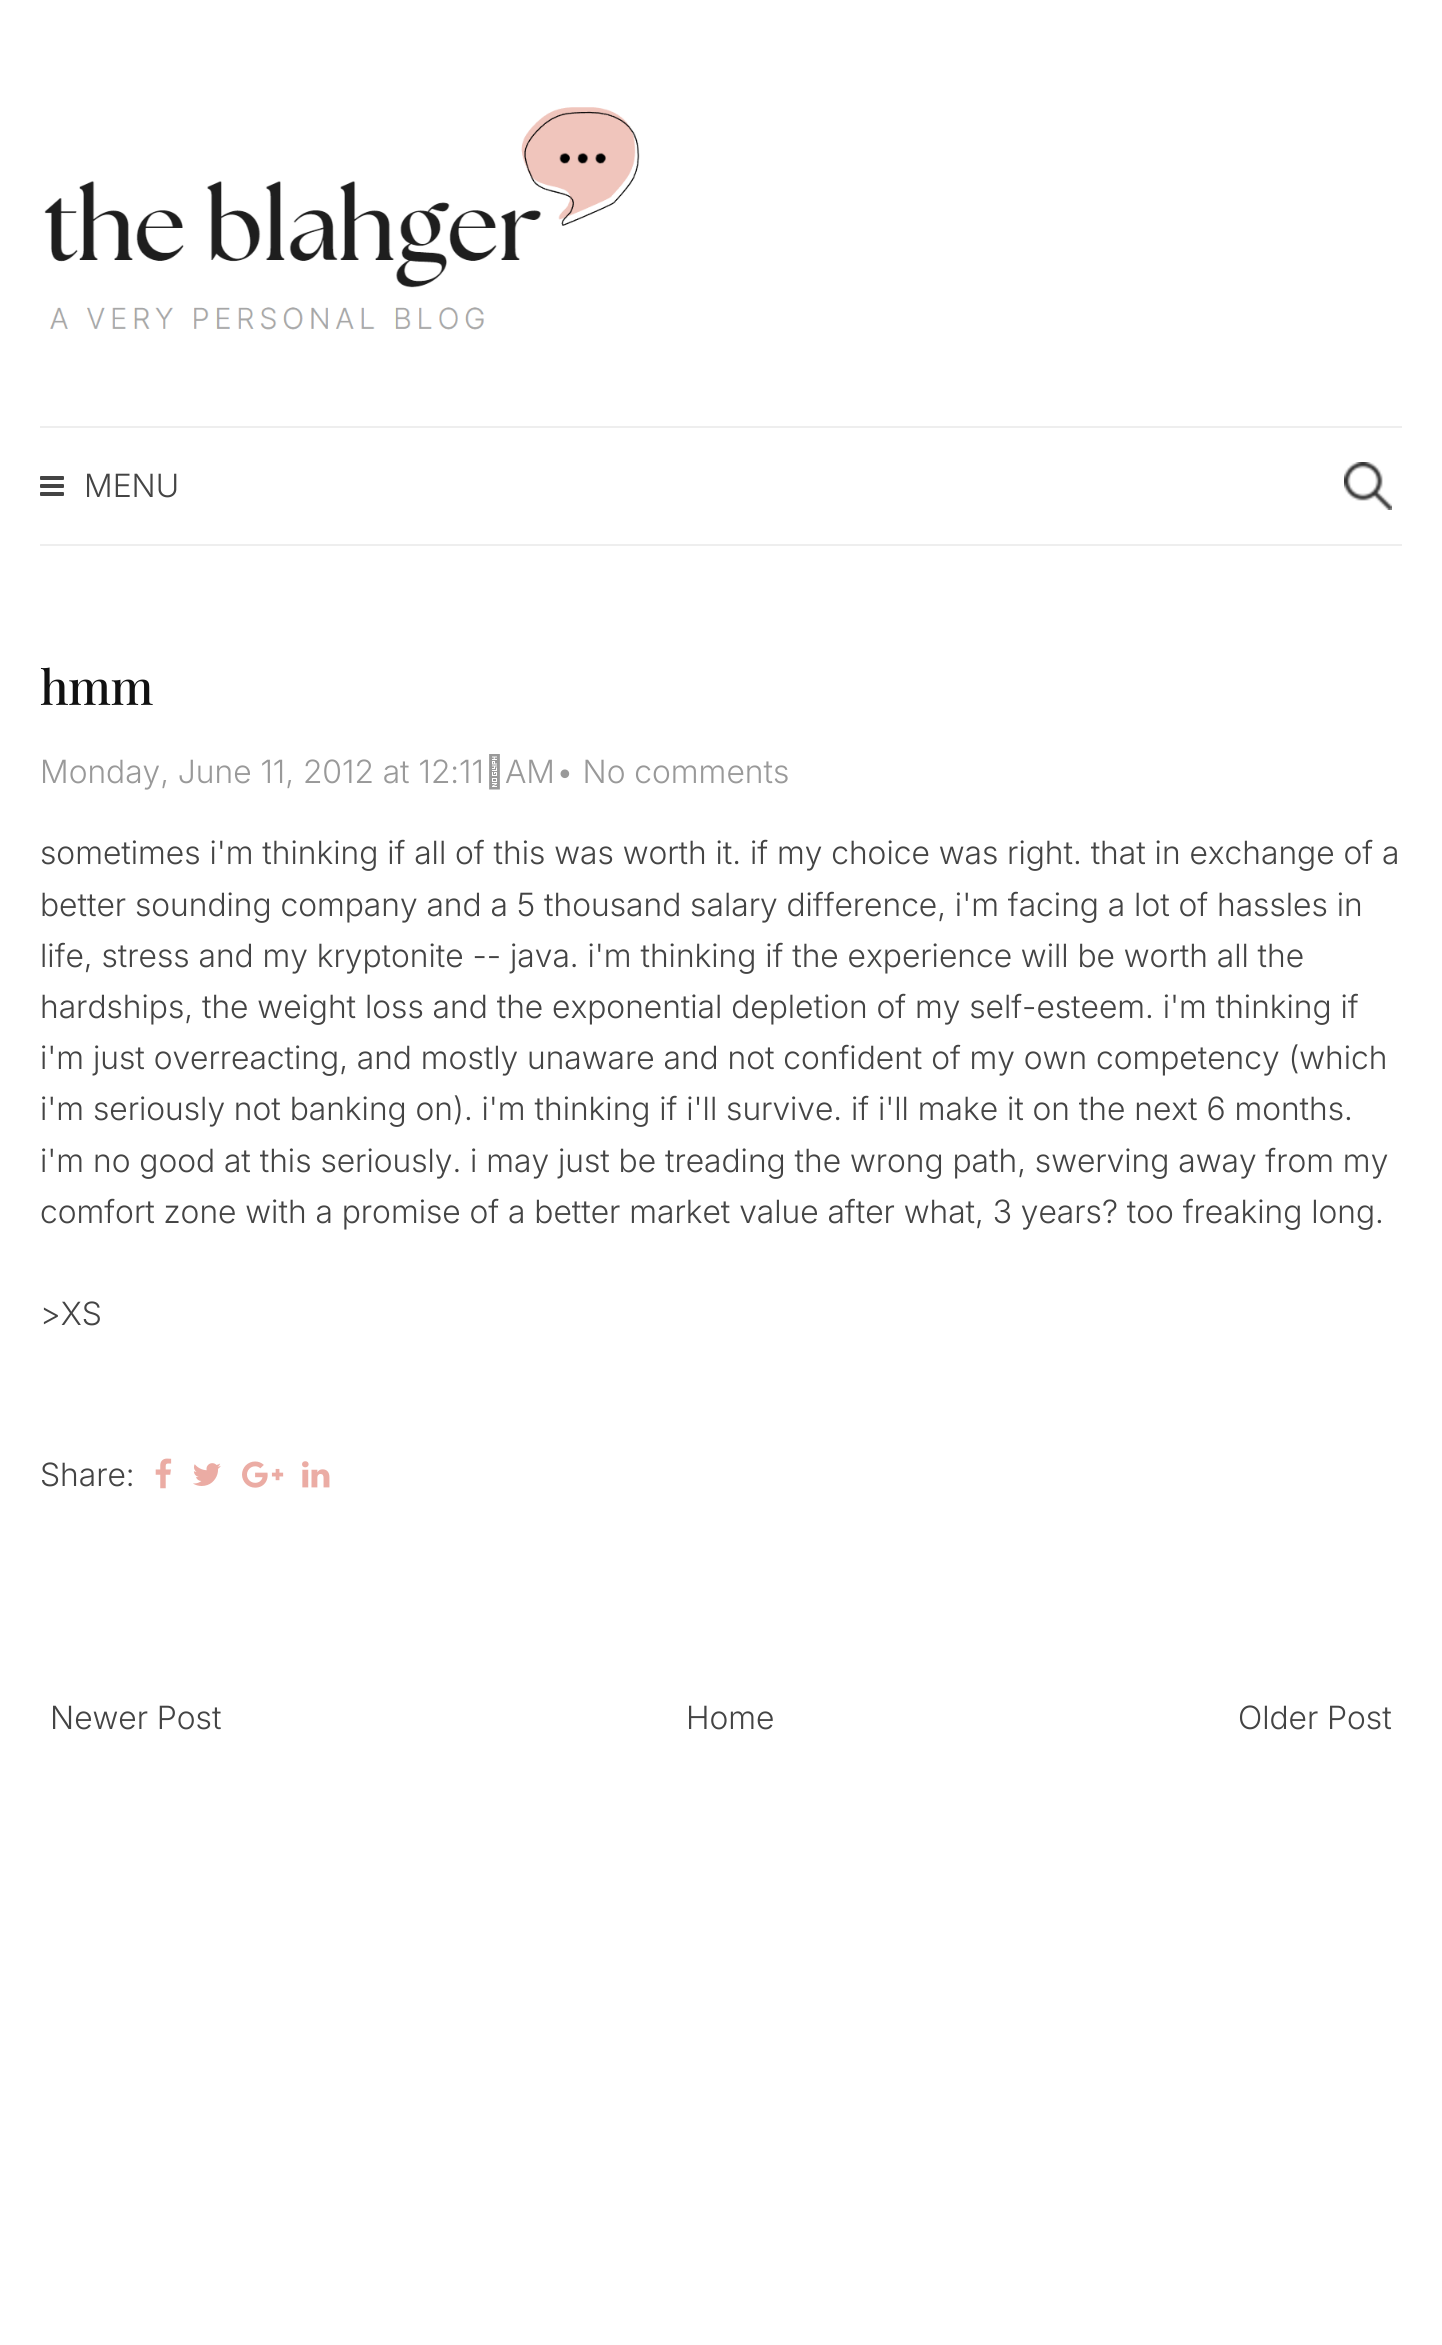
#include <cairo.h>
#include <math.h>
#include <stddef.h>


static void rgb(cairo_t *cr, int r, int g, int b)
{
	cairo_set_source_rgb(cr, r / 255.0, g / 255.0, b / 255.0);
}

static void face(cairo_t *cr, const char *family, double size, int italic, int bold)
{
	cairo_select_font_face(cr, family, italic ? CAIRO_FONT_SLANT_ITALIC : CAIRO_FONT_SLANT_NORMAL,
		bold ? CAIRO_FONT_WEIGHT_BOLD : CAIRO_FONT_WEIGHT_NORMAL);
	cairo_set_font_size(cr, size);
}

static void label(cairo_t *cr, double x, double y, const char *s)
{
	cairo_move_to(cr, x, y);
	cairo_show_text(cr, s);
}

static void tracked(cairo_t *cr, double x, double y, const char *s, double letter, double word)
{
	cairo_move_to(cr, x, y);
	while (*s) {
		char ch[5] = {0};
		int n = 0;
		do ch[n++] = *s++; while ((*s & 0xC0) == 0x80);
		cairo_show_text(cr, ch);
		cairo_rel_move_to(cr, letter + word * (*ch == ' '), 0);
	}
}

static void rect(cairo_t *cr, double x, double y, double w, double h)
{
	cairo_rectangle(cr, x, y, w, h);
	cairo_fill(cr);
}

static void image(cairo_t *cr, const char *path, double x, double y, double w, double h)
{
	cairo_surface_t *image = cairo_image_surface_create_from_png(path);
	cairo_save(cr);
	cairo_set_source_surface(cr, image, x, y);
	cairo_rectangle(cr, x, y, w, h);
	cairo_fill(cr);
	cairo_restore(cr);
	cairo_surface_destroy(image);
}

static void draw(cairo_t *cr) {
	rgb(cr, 255, 255, 255);
	cairo_paint(cr);
	image(cr, "image0.png", 44, 107, 596, 223);
	rgb(cr, 238, 238, 238);
	rect(cr, 40, 426, 1362, 2);
	rect(cr, 40, 544, 1362, 2);
	image(cr, "image1.png", 40, 476, 24, 20);
	face(cr, "Inter Light", 32, 0, 0);
	rgb(cr, 68, 68, 68);
	label(cr, 84, 497, "MENU");
	image(cr, "image2.png", 1344, 462, 48, 48);
	face(cr, "Playfair Display Medium", 48, 0, 0);
	rgb(cr, 17, 17, 17);
	tracked(cr, 40, 705, "hmm", -0.5, 0);
	face(cr, "Inter Light", 32, 0, 0);
	rgb(cr, 153, 153, 153);
	label(cr, 40, 783, "Monday, June 11, 2012 at 12:11 AM");
	label(cr, 556, 783, "• No comments");
	rgb(cr, 68, 68, 68);
	label(cr, 40, 864, "sometimes i'm thinking if all of this was worth it. if my choice was right. that in exchange of a");
	label(cr, 40, 916, "better sounding company and a 5 thousand salary difference, i'm facing a lot of hassles in");
	label(cr, 40, 967, "life, stress and my kryptonite -- java. i'm thinking if the experience will be worth all the");
	label(cr, 40, 1018, "hardships, the weight loss and the exponential depletion of my self-esteem. i'm thinking if");
	label(cr, 40, 1069, "i'm just overreacting, and mostly unaware and not confident of my own competency (which");
	label(cr, 40, 1120, "i'm seriously not banking on). i'm thinking if i'll survive. if i'll make it on the next 6 months.");
	label(cr, 40, 1172, "i'm no good at this seriously. i may just be treading the wrong path, swerving away from my");
	label(cr, 40, 1223, "comfort zone with a promise of a better market value after what, 3 years? too freaking long.");
	label(cr, 40, 1325, ">XS");
	label(cr, 40, 1486, "Share:");
	image(cr, "image3.png", 155, 1458, 17, 31);
	image(cr, "image4.png", 193, 1463, 28, 23);
	image(cr, "image5.png", 242, 1461, 42, 27);
	image(cr, "image6.png", 302, 1461, 28, 27);
	label(cr, 50, 1729, "Newer Post");
	label(cr, 686, 1729, "Home");
	label(cr, 1238, 1729, "Older Post");
}

int main(void) {
	cairo_surface_t *surface = cairo_image_surface_create(CAIRO_FORMAT_RGB24, 1442, 2345);
	cairo_t *cr = cairo_create(surface);
	cairo_font_options_t *options = cairo_font_options_create();
	cairo_font_options_set_hint_metrics(options, CAIRO_HINT_METRICS_OFF);
	cairo_font_options_set_hint_style(options, CAIRO_HINT_STYLE_NONE);
	cairo_set_font_options(cr, options);
	cairo_set_miter_limit(cr, 4);
	draw(cr);
	cairo_surface_write_to_png(surface, "render.png");
	cairo_font_options_destroy(options);
	cairo_destroy(cr);
	cairo_surface_destroy(surface);
	return 0;
}
